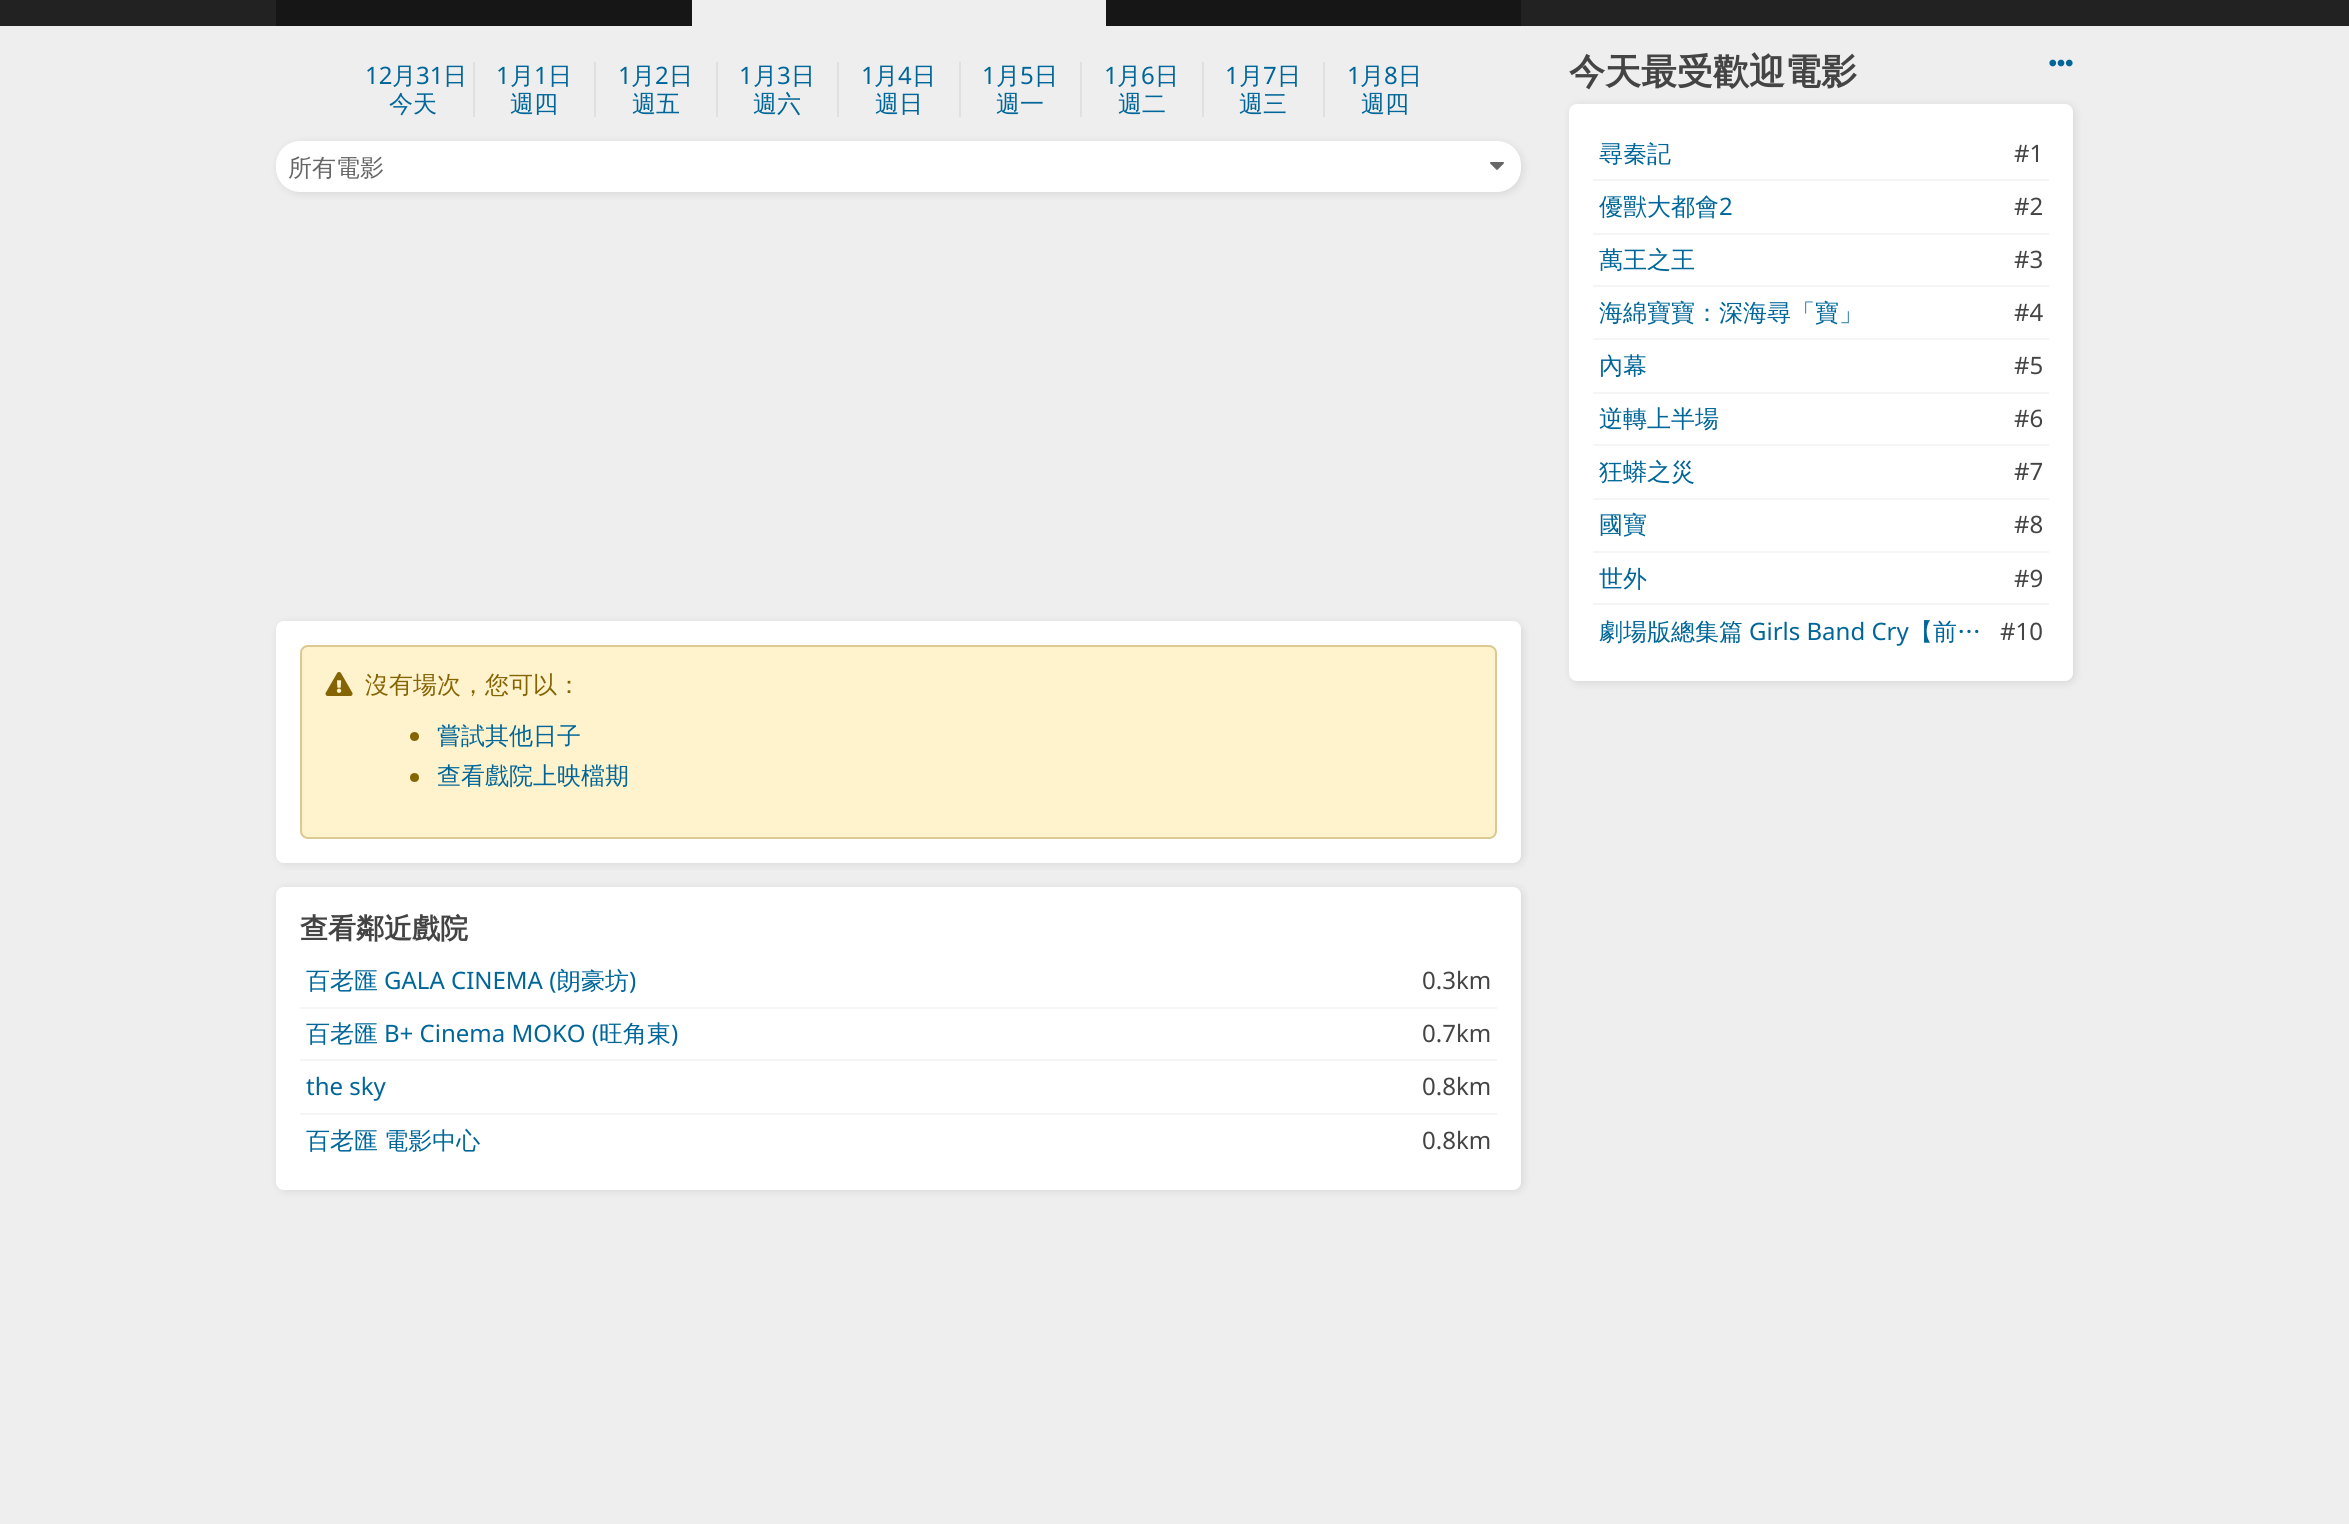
#include <cairo.h>
#include <math.h>
#include <stddef.h>


static void rgb(cairo_t *cr, int r, int g, int b)
{
	cairo_set_source_rgb(cr, r / 255.0, g / 255.0, b / 255.0);
}

static void face(cairo_t *cr, const char *family, double size, int italic, int bold)
{
	cairo_select_font_face(cr, family, italic ? CAIRO_FONT_SLANT_ITALIC : CAIRO_FONT_SLANT_NORMAL,
		bold ? CAIRO_FONT_WEIGHT_BOLD : CAIRO_FONT_WEIGHT_NORMAL);
	cairo_set_font_size(cr, size);
}

static void label(cairo_t *cr, double x, double y, const char *s)
{
	cairo_move_to(cr, x, y);
	cairo_show_text(cr, s);
}

static void tracked(cairo_t *cr, double x, double y, const char *s, double letter, double word)
{
	cairo_move_to(cr, x, y);
	while (*s) {
		char ch[5] = {0};
		int n = 0;
		do ch[n++] = *s++; while ((*s & 0xC0) == 0x80);
		cairo_show_text(cr, ch);
		cairo_rel_move_to(cr, letter + word * (*ch == ' '), 0);
	}
}

static void rect(cairo_t *cr, double x, double y, double w, double h)
{
	cairo_rectangle(cr, x, y, w, h);
	cairo_fill(cr);
}

static void rrect(cairo_t *cr, double x, double y, double w, double h, double r)
{
	cairo_new_sub_path(cr);
	cairo_arc(cr, x + w - r, y + h - r, r, 0, M_PI / 2);
	cairo_arc(cr, x + r, y + h - r, r, M_PI / 2, M_PI);
	cairo_arc(cr, x + r, y + r, r, M_PI, 1.5 * M_PI);
	cairo_arc(cr, x + w - r, y + r, r, 1.5 * M_PI, 2 * M_PI);
	cairo_close_path(cr);
}

static void soft_shadow(cairo_t *cr, double x, double y, double w, double h, double r, double blur, double alpha)
{
	cairo_push_group_with_content(cr, CAIRO_CONTENT_ALPHA);
	cairo_set_operator(cr, CAIRO_OPERATOR_SOURCE);
	for (int i = 15; i >= -15 && fmin(w, h) + blur * i / 3 > 0; i -= 2) {
		double e = blur * i / 6;
		cairo_set_source_rgba(cr, 0, 0, 0, alpha * erfc((i - 1) / 8.5) / 2);
		rrect(cr, x - e, y - e, w + 2 * e, h + 2 * e, fmax(0, fmin(r + e + blur * .6, fmin(w, h) / 2 + e)));
		cairo_fill(cr);
	}
	cairo_pattern_t *soft = cairo_pop_group(cr);
	cairo_mask(cr, soft);
	cairo_pattern_destroy(soft);
}

static void image(cairo_t *cr, const char *path, double x, double y, double w, double h)
{
	cairo_surface_t *image = cairo_image_surface_create_from_png(path);
	cairo_save(cr);
	cairo_set_source_surface(cr, image, x, y);
	cairo_rectangle(cr, x, y, w, h);
	cairo_fill(cr);
	cairo_restore(cr);
	cairo_surface_destroy(image);
}

static void draw(cairo_t *cr) {
	rgb(cr, 238, 238, 238);
	cairo_paint(cr);
	rgb(cr, 34, 34, 34);
	rect(cr, 0, 0, 2349, 26);
	rgb(cr, 22, 22, 22);
	rect(cr, 276, 0, 416, 26);
	rgb(cr, 238, 238, 238);
	rect(cr, 692, 0, 414, 26);
	rgb(cr, 22, 22, 22);
	rect(cr, 1106, 0, 415, 26);
	face(cr, "Noto Sans", 24, 0, 0);
	rgb(cr, 0, 102, 153);
	label(cr, 365, 84, "12");
	face(cr, "WenQuanYi Zen Hei Medium", 24, 0, 0);
	label(cr, 392, 84, "月");
	face(cr, "Noto Sans", 24, 0, 0);
	label(cr, 416, 84, "31");
	face(cr, "WenQuanYi Zen Hei Medium", 24, 0, 0);
	label(cr, 443, 84, "日");
	label(cr, 389, 112, "今天");
	rgb(cr, 224, 224, 224);
	rect(cr, 473, 62, 2, 55);
	face(cr, "Noto Sans", 24, 0, 0);
	rgb(cr, 0, 102, 153);
	label(cr, 496, 84, "1");
	face(cr, "WenQuanYi Zen Hei Medium", 24, 0, 0);
	label(cr, 510, 84, "月");
	face(cr, "Noto Sans", 24, 0, 0);
	label(cr, 534, 84, "1");
	face(cr, "WenQuanYi Zen Hei Medium", 24, 0, 0);
	label(cr, 548, 84, "日");
	label(cr, 510, 112, "週四");
	rgb(cr, 224, 224, 224);
	rect(cr, 594, 62, 2, 55);
	face(cr, "Noto Sans", 24, 0, 0);
	rgb(cr, 0, 102, 153);
	label(cr, 618, 84, "1");
	face(cr, "WenQuanYi Zen Hei Medium", 24, 0, 0);
	label(cr, 631, 84, "月");
	face(cr, "Noto Sans", 24, 0, 0);
	label(cr, 655, 84, "2");
	face(cr, "WenQuanYi Zen Hei Medium", 24, 0, 0);
	label(cr, 669, 84, "日");
	label(cr, 632, 112, "週五");
	rgb(cr, 224, 224, 224);
	rect(cr, 716, 62, 2, 55);
	face(cr, "Noto Sans", 24, 0, 0);
	rgb(cr, 0, 102, 153);
	label(cr, 739, 84, "1");
	face(cr, "WenQuanYi Zen Hei Medium", 24, 0, 0);
	label(cr, 753, 84, "月");
	face(cr, "Noto Sans", 24, 0, 0);
	label(cr, 777, 84, "3");
	face(cr, "WenQuanYi Zen Hei Medium", 24, 0, 0);
	label(cr, 791, 84, "日");
	label(cr, 753, 112, "週六");
	rgb(cr, 224, 224, 224);
	rect(cr, 837, 62, 2, 55);
	face(cr, "Noto Sans", 24, 0, 0);
	rgb(cr, 0, 102, 153);
	label(cr, 861, 84, "1");
	face(cr, "WenQuanYi Zen Hei Medium", 24, 0, 0);
	label(cr, 874, 84, "月");
	face(cr, "Noto Sans", 24, 0, 0);
	label(cr, 898, 84, "4");
	face(cr, "WenQuanYi Zen Hei Medium", 24, 0, 0);
	label(cr, 912, 84, "日");
	label(cr, 875, 112, "週日");
	rgb(cr, 224, 224, 224);
	rect(cr, 959, 62, 2, 55);
	face(cr, "Noto Sans", 24, 0, 0);
	rgb(cr, 0, 102, 153);
	label(cr, 982, 84, "1");
	face(cr, "WenQuanYi Zen Hei Medium", 24, 0, 0);
	label(cr, 996, 84, "月");
	face(cr, "Noto Sans", 24, 0, 0);
	label(cr, 1020, 84, "5");
	face(cr, "WenQuanYi Zen Hei Medium", 24, 0, 0);
	label(cr, 1034, 84, "日");
	label(cr, 996, 112, "週一");
	rgb(cr, 224, 224, 224);
	rect(cr, 1080, 62, 2, 55);
	face(cr, "Noto Sans", 24, 0, 0);
	rgb(cr, 0, 102, 153);
	label(cr, 1104, 84, "1");
	face(cr, "WenQuanYi Zen Hei Medium", 24, 0, 0);
	label(cr, 1117, 84, "月");
	face(cr, "Noto Sans", 24, 0, 0);
	label(cr, 1141, 84, "6");
	face(cr, "WenQuanYi Zen Hei Medium", 24, 0, 0);
	label(cr, 1155, 84, "日");
	label(cr, 1118, 112, "週二");
	rgb(cr, 224, 224, 224);
	rect(cr, 1202, 62, 2, 55);
	face(cr, "Noto Sans", 24, 0, 0);
	rgb(cr, 0, 102, 153);
	label(cr, 1225, 84, "1");
	face(cr, "WenQuanYi Zen Hei Medium", 24, 0, 0);
	label(cr, 1239, 84, "月");
	face(cr, "Noto Sans", 24, 0, 0);
	label(cr, 1263, 84, "7");
	face(cr, "WenQuanYi Zen Hei Medium", 24, 0, 0);
	label(cr, 1277, 84, "日");
	label(cr, 1239, 112, "週三");
	rgb(cr, 224, 224, 224);
	rect(cr, 1323, 62, 2, 55);
	face(cr, "Noto Sans", 24, 0, 0);
	rgb(cr, 0, 102, 153);
	label(cr, 1347, 84, "1");
	face(cr, "WenQuanYi Zen Hei Medium", 24, 0, 0);
	label(cr, 1360, 84, "月");
	face(cr, "Noto Sans", 24, 0, 0);
	label(cr, 1384, 84, "8");
	face(cr, "WenQuanYi Zen Hei Medium", 24, 0, 0);
	label(cr, 1398, 84, "日");
	label(cr, 1361, 112, "週四");
	rgb(cr, 0, 0, 0);
	soft_shadow(cr, 278, 143, 1245, 51, 24, 4, 0.1);
	rgb(cr, 255, 255, 255);
	rrect(cr, 276, 141, 1245, 51, 24);
	cairo_fill(cr);
	rgb(cr, 102, 102, 102);
	label(cr, 288, 176, "所有電影");
	image(cr, "image0.png", 1490, 162, 14, 8);
	rgb(cr, 0, 0, 0);
	soft_shadow(cr, 278, 623, 1245, 241, 8, 4, 0.1);
	rgb(cr, 255, 255, 255);
	rrect(cr, 276, 621, 1245, 242, 8);
	cairo_fill(cr);
	rgb(cr, 255, 243, 205);
	rrect(cr, 300, 645, 1197, 194, 8);
	cairo_fill(cr);
	rrect(cr, 301, 646, 1195, 192, 7);
	cairo_set_source_rgba(cr, 0.522, 0.392, 0.016, 0.3);
	cairo_stroke(cr);
	image(cr, "image1.png", 325, 672, 28, 24);
	rgb(cr, 133, 100, 4);
	label(cr, 365, 693, "沒有場次，您可以：");
	cairo_new_path(cr);
	cairo_arc(cr, 414.5, 736.5, 4.5, 0, 2 * M_PI);
	cairo_fill(cr);
	rgb(cr, 0, 102, 153);
	label(cr, 437, 744, "嘗試其他日子");
	rgb(cr, 133, 100, 4);
	cairo_new_path(cr);
	cairo_arc(cr, 414.5, 777.5, 4.5, 0, 2 * M_PI);
	cairo_fill(cr);
	rgb(cr, 0, 102, 153);
	label(cr, 437, 784, "查看戲院上映檔期");
	rgb(cr, 0, 0, 0);
	soft_shadow(cr, 278, 888, 1245, 303, 8, 4, 0.1);
	rgb(cr, 255, 255, 255);
	rrect(cr, 276, 887, 1245, 303, 8);
	cairo_fill(cr);
	face(cr, "WenQuanYi Zen Hei", 28, 0, 1);
	rgb(cr, 68, 68, 68);
	label(cr, 300, 938, "查看鄰近戲院");
	rgb(cr, 245, 245, 245);
	rect(cr, 300, 1007, 1197, 2);
	face(cr, "WenQuanYi Zen Hei Medium", 24, 0, 0);
	rgb(cr, 0, 102, 153);
	label(cr, 306, 989, "百老匯");
	face(cr, "Noto Sans", 24, 0, 0);
	label(cr, 384, 989, "GALA CINEMA (");
	face(cr, "WenQuanYi Zen Hei Medium", 24, 0, 0);
	label(cr, 557, 989, "朗豪坊");
	face(cr, "Noto Sans", 24, 0, 0);
	label(cr, 629, 989, ")");
	rgb(cr, 68, 68, 68);
	label(cr, 1422, 989, "0.3km");
	rgb(cr, 245, 245, 245);
	rect(cr, 300, 1059, 1197, 2);
	face(cr, "WenQuanYi Zen Hei Medium", 24, 0, 0);
	rgb(cr, 0, 102, 153);
	label(cr, 306, 1042, "百老匯");
	face(cr, "Noto Sans", 24, 0, 0);
	label(cr, 384, 1042, "B+ Cinema MOKO (");
	face(cr, "WenQuanYi Zen Hei Medium", 24, 0, 0);
	label(cr, 599, 1042, "旺角東");
	face(cr, "Noto Sans", 24, 0, 0);
	label(cr, 671, 1042, ")");
	rgb(cr, 68, 68, 68);
	label(cr, 1422, 1042, "0.7km");
	rgb(cr, 245, 245, 245);
	rect(cr, 300, 1113, 1197, 2);
	rgb(cr, 0, 102, 153);
	label(cr, 306, 1095, "the sky");
	rgb(cr, 68, 68, 68);
	label(cr, 1422, 1095, "0.8km");
	face(cr, "WenQuanYi Zen Hei Medium", 24, 0, 0);
	rgb(cr, 0, 102, 153);
	tracked(cr, 306, 1149, "百老匯 電影中心", 0, -1);
	face(cr, "Noto Sans", 24, 0, 0);
	rgb(cr, 68, 68, 68);
	label(cr, 1422, 1149, "0.8km");
	face(cr, "WenQuanYi Zen Hei", 36, 0, 1);
	label(cr, 1569, 84, "今天最受歡迎電影");
	image(cr, "image2.png", 2049, 59, 24, 8);
	rgb(cr, 0, 0, 0);
	soft_shadow(cr, 1571, 105, 504, 578, 8, 4, 0.1);
	rgb(cr, 255, 255, 255);
	rrect(cr, 1569, 104, 504, 577, 8);
	cairo_fill(cr);
	rgb(cr, 245, 245, 245);
	rect(cr, 1593, 179, 456, 2);
	face(cr, "WenQuanYi Zen Hei Medium", 24, 0, 0);
	rgb(cr, 0, 102, 153);
	label(cr, 1599, 162, "尋秦記");
	face(cr, "Noto Sans", 24, 0, 0);
	rgb(cr, 68, 68, 68);
	label(cr, 2014, 162, "#1");
	rgb(cr, 245, 245, 245);
	rect(cr, 1593, 233, 456, 2);
	face(cr, "WenQuanYi Zen Hei Medium", 24, 0, 0);
	rgb(cr, 0, 102, 153);
	label(cr, 1599, 215, "優獸大都會");
	face(cr, "Noto Sans", 24, 0, 0);
	label(cr, 1719, 215, "2");
	rgb(cr, 68, 68, 68);
	label(cr, 2014, 215, "#2");
	rgb(cr, 245, 245, 245);
	rect(cr, 1593, 285, 456, 2);
	face(cr, "WenQuanYi Zen Hei Medium", 24, 0, 0);
	rgb(cr, 0, 102, 153);
	label(cr, 1599, 268, "萬王之王");
	face(cr, "Noto Sans", 24, 0, 0);
	rgb(cr, 68, 68, 68);
	label(cr, 2014, 268, "#3");
	rgb(cr, 245, 245, 245);
	rect(cr, 1593, 338, 456, 2);
	face(cr, "WenQuanYi Zen Hei Medium", 24, 0, 0);
	rgb(cr, 0, 102, 153);
	label(cr, 1599, 321, "海綿寶寶：深海尋「寶」");
	face(cr, "Noto Sans", 24, 0, 0);
	rgb(cr, 68, 68, 68);
	label(cr, 2014, 321, "#4");
	rgb(cr, 245, 245, 245);
	rect(cr, 1593, 392, 456, 2);
	face(cr, "WenQuanYi Zen Hei Medium", 24, 0, 0);
	rgb(cr, 0, 102, 153);
	label(cr, 1599, 374, "內幕");
	face(cr, "Noto Sans", 24, 0, 0);
	rgb(cr, 68, 68, 68);
	label(cr, 2014, 374, "#5");
	rgb(cr, 245, 245, 245);
	rect(cr, 1593, 444, 456, 2);
	face(cr, "WenQuanYi Zen Hei Medium", 24, 0, 0);
	rgb(cr, 0, 102, 153);
	label(cr, 1599, 427, "逆轉上半場");
	face(cr, "Noto Sans", 24, 0, 0);
	rgb(cr, 68, 68, 68);
	label(cr, 2014, 427, "#6");
	rgb(cr, 245, 245, 245);
	rect(cr, 1593, 498, 456, 2);
	face(cr, "WenQuanYi Zen Hei Medium", 24, 0, 0);
	rgb(cr, 0, 102, 153);
	label(cr, 1599, 480, "狂蟒之災");
	face(cr, "Noto Sans", 24, 0, 0);
	rgb(cr, 68, 68, 68);
	label(cr, 2014, 480, "#7");
	rgb(cr, 245, 245, 245);
	rect(cr, 1593, 551, 456, 2);
	face(cr, "WenQuanYi Zen Hei Medium", 24, 0, 0);
	rgb(cr, 0, 102, 153);
	label(cr, 1599, 533, "國寶");
	face(cr, "Noto Sans", 24, 0, 0);
	rgb(cr, 68, 68, 68);
	label(cr, 2014, 533, "#8");
	rgb(cr, 245, 245, 245);
	rect(cr, 1593, 603, 456, 2);
	face(cr, "WenQuanYi Zen Hei Medium", 24, 0, 0);
	rgb(cr, 0, 102, 153);
	label(cr, 1599, 587, "世外");
	face(cr, "Noto Sans", 24, 0, 0);
	rgb(cr, 68, 68, 68);
	label(cr, 2014, 587, "#9");
	face(cr, "WenQuanYi Zen Hei Medium", 24, 0, 0);
	rgb(cr, 0, 102, 153);
	label(cr, 1599, 640, "劇場版總集篇");
	face(cr, "Noto Sans", 24, 0, 0);
	label(cr, 1749, 640, "Girls Band Cry");
	face(cr, "WenQuanYi Zen Hei Medium", 24, 0, 0);
	label(cr, 1909, 640, "【前…");
	face(cr, "Noto Sans", 24, 0, 0);
	rgb(cr, 68, 68, 68);
	label(cr, 2000, 640, "#10");
}

int main(void) {
	cairo_surface_t *surface = cairo_image_surface_create(CAIRO_FORMAT_RGB24, 2349, 1524);
	cairo_t *cr = cairo_create(surface);
	cairo_font_options_t *options = cairo_font_options_create();
	cairo_font_options_set_hint_metrics(options, CAIRO_HINT_METRICS_OFF);
	cairo_font_options_set_hint_style(options, CAIRO_HINT_STYLE_NONE);
	cairo_set_font_options(cr, options);
	cairo_set_miter_limit(cr, 4);
	draw(cr);
	cairo_surface_write_to_png(surface, "render.png");
	cairo_font_options_destroy(options);
	cairo_destroy(cr);
	cairo_surface_destroy(surface);
	return 0;
}
